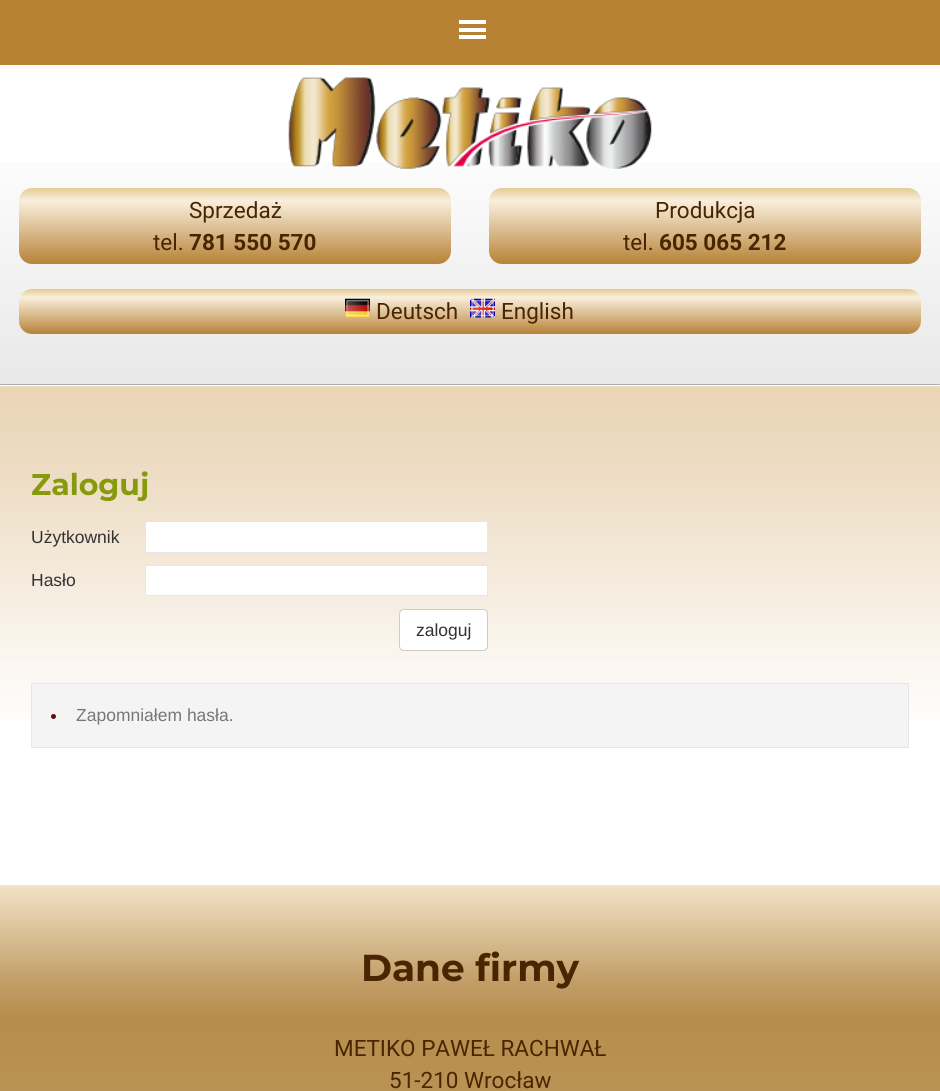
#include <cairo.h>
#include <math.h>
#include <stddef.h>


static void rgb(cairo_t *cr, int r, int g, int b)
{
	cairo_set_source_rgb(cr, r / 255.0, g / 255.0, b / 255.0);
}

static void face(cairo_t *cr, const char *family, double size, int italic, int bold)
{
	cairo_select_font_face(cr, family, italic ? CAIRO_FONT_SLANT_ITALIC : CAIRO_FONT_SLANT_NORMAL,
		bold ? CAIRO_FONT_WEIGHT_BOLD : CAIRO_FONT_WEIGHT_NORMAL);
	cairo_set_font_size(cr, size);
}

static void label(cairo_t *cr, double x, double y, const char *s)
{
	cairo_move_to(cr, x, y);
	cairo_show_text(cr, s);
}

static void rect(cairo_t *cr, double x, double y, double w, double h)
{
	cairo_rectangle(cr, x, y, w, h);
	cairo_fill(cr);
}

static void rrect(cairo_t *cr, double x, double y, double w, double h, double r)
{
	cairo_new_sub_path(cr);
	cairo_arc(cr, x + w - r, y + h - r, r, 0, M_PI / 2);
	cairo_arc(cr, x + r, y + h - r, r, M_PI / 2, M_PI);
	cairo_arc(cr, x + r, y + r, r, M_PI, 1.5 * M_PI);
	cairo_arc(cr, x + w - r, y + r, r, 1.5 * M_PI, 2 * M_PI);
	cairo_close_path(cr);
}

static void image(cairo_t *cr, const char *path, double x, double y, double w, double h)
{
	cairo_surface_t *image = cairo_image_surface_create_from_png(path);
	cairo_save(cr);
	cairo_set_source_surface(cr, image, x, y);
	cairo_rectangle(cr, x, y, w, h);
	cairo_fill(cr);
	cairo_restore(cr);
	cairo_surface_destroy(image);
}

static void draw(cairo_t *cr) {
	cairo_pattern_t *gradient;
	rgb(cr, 255, 255, 255);
	cairo_paint(cr);
	rgb(cr, 183, 130, 52);
	rect(cr, 0, 0, 940, 65);
	rgb(cr, 255, 255, 255);
	rect(cr, 459, 20, 27, 4);
	rect(cr, 459, 28, 27, 4);
	rect(cr, 459, 35, 27, 4);
	gradient = cairo_pattern_create_linear(470, 0, 470, 384);
	cairo_pattern_add_color_stop_rgba(gradient, 0, 1, 1, 1, 1);
	cairo_pattern_add_color_stop_rgba(gradient, 0.35, 1, 1, 1, 1);
	cairo_pattern_add_color_stop_rgba(gradient, 1, 0.91, 0.91, 0.914, 1);
	cairo_set_source(cr, gradient);
	cairo_pattern_destroy(gradient);
	rect(cr, 0, 162, 940, 222);
	image(cr, "image0.png", 288, 77, 364, 92);
	gradient = cairo_pattern_create_linear(235, 187, 235, 264);
	cairo_pattern_add_color_stop_rgba(gradient, 0, 0.89, 0.788, 0.557, 1);
	cairo_pattern_add_color_stop_rgba(gradient, 0.18, 0.976, 0.937, 0.867, 1);
	cairo_pattern_add_color_stop_rgba(gradient, 1, 0.718, 0.51, 0.212, 1);
	cairo_set_source(cr, gradient);
	cairo_pattern_destroy(gradient);
	rrect(cr, 19, 188, 432, 76, 13);
	cairo_fill(cr);
	face(cr, "Roboto", 22.5, 0, 0);
	rgb(cr, 73, 37, 1);
	label(cr, 189, 218, "Sprzedaż");
	label(cr, 153, 250, "tel.");
	face(cr, "Roboto", 22.5, 0, 1);
	label(cr, 189, 250, "781 550 570");
	gradient = cairo_pattern_create_linear(705, 187, 705, 264);
	cairo_pattern_add_color_stop_rgba(gradient, 0, 0.89, 0.788, 0.557, 1);
	cairo_pattern_add_color_stop_rgba(gradient, 0.18, 0.976, 0.937, 0.867, 1);
	cairo_pattern_add_color_stop_rgba(gradient, 1, 0.718, 0.51, 0.212, 1);
	cairo_set_source(cr, gradient);
	cairo_pattern_destroy(gradient);
	rrect(cr, 489, 188, 432, 76, 13);
	cairo_fill(cr);
	face(cr, "Roboto", 22.5, 0, 0);
	rgb(cr, 73, 37, 1);
	label(cr, 655, 218, "Produkcja");
	label(cr, 623, 250, "tel.");
	face(cr, "Roboto", 22.5, 0, 1);
	label(cr, 659, 250, "605 065 212");
	gradient = cairo_pattern_create_linear(470, 289, 470, 334);
	cairo_pattern_add_color_stop_rgba(gradient, 0, 0.89, 0.788, 0.557, 1);
	cairo_pattern_add_color_stop_rgba(gradient, 0.18, 0.976, 0.937, 0.867, 1);
	cairo_pattern_add_color_stop_rgba(gradient, 1, 0.718, 0.51, 0.212, 1);
	cairo_set_source(cr, gradient);
	cairo_pattern_destroy(gradient);
	rrect(cr, 19, 289, 902, 45, 13);
	cairo_fill(cr);
	image(cr, "image1.png", 345, 298, 25, 20);
	face(cr, "Roboto", 22.5, 0, 0);
	rgb(cr, 73, 37, 1);
	label(cr, 376, 319, "Deutsch");
	image(cr, "image2.png", 470, 298, 25, 20);
	label(cr, 501, 319, "English");
	rgb(cr, 173, 175, 175);
	rrect(cr, 0, 384, 940, 1, 0.5);
	cairo_fill(cr);
	image(cr, "image3.png", 0, 386, 940, 333);
	face(cr, "Montserrat", 30, 0, 1);
	rgb(cr, 135, 154, 11);
	label(cr, 31, 495, "Zaloguj");
	face(cr, "Liberation Sans", 17.5, 0, 0);
	rgb(cr, 51, 51, 51);
	label(cr, 31, 543, "Użytkownik");
	rgb(cr, 255, 255, 255);
	cairo_rectangle(cr, 145.5, 521.5, 342, 31);
	cairo_fill_preserve(cr);
	rgb(cr, 230, 230, 230);
	cairo_set_line_width(cr, 1);
	cairo_stroke(cr);
	rgb(cr, 51, 51, 51);
	label(cr, 31, 586, "Hasło");
	rgb(cr, 255, 255, 255);
	cairo_rectangle(cr, 145.5, 565.5, 342, 30);
	cairo_fill_preserve(cr);
	rgb(cr, 230, 230, 230);
	cairo_stroke(cr);
	rgb(cr, 255, 255, 255);
	rrect(cr, 399.5, 609.5, 88, 41, 4.5);
	cairo_fill_preserve(cr);
	rgb(cr, 204, 204, 204);
	cairo_stroke(cr);
	rgb(cr, 51, 51, 51);
	label(cr, 416, 636, "zaloguj");
	rgb(cr, 244, 244, 244);
	cairo_rectangle(cr, 31.5, 683.5, 877, 64);
	cairo_fill_preserve(cr);
	rgb(cr, 230, 230, 230);
	cairo_stroke(cr);
	rgb(cr, 84, 18, 18);
	cairo_arc(cr, 53.5, 716.5, 2.5, 0, 2 * M_PI);
	cairo_fill(cr);
	rgb(cr, 119, 119, 119);
	label(cr, 76, 721, "Zapomniałem hasła.");
	gradient = cairo_pattern_create_linear(470, 885, 470, 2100);
	cairo_pattern_add_color_stop_rgba(gradient, 0, 0.953, 0.886, 0.78, 1);
	cairo_pattern_add_color_stop_rgba(gradient, 0.08, 0.757, 0.62, 0.404, 1);
	cairo_pattern_add_color_stop_rgba(gradient, 0.11, 0.714, 0.553, 0.298, 1);
	cairo_pattern_add_color_stop_rgba(gradient, 1, 0.914, 0.831, 0.702, 1);
	cairo_set_source(cr, gradient);
	cairo_pattern_destroy(gradient);
	rect(cr, 0, 885, 940, 206);
	face(cr, "Montserrat", 37.5, 0, 1);
	rgb(cr, 73, 37, 1);
	label(cr, 361, 981, "Dane firmy");
	face(cr, "Roboto", 22.5, 0, 0);
	label(cr, 334, 1056, "METIKO PAWEŁ RACHWAŁ");
	label(cr, 389, 1088, "51-210 Wrocław");
}

int main(void) {
	cairo_surface_t *surface = cairo_image_surface_create(CAIRO_FORMAT_RGB24, 940, 1091);
	cairo_t *cr = cairo_create(surface);
	cairo_font_options_t *options = cairo_font_options_create();
	cairo_font_options_set_hint_metrics(options, CAIRO_HINT_METRICS_OFF);
	cairo_font_options_set_hint_style(options, CAIRO_HINT_STYLE_NONE);
	cairo_set_font_options(cr, options);
	cairo_set_miter_limit(cr, 4);
	draw(cr);
	cairo_surface_write_to_png(surface, "render.png");
	cairo_font_options_destroy(options);
	cairo_destroy(cr);
	cairo_surface_destroy(surface);
	return 0;
}
